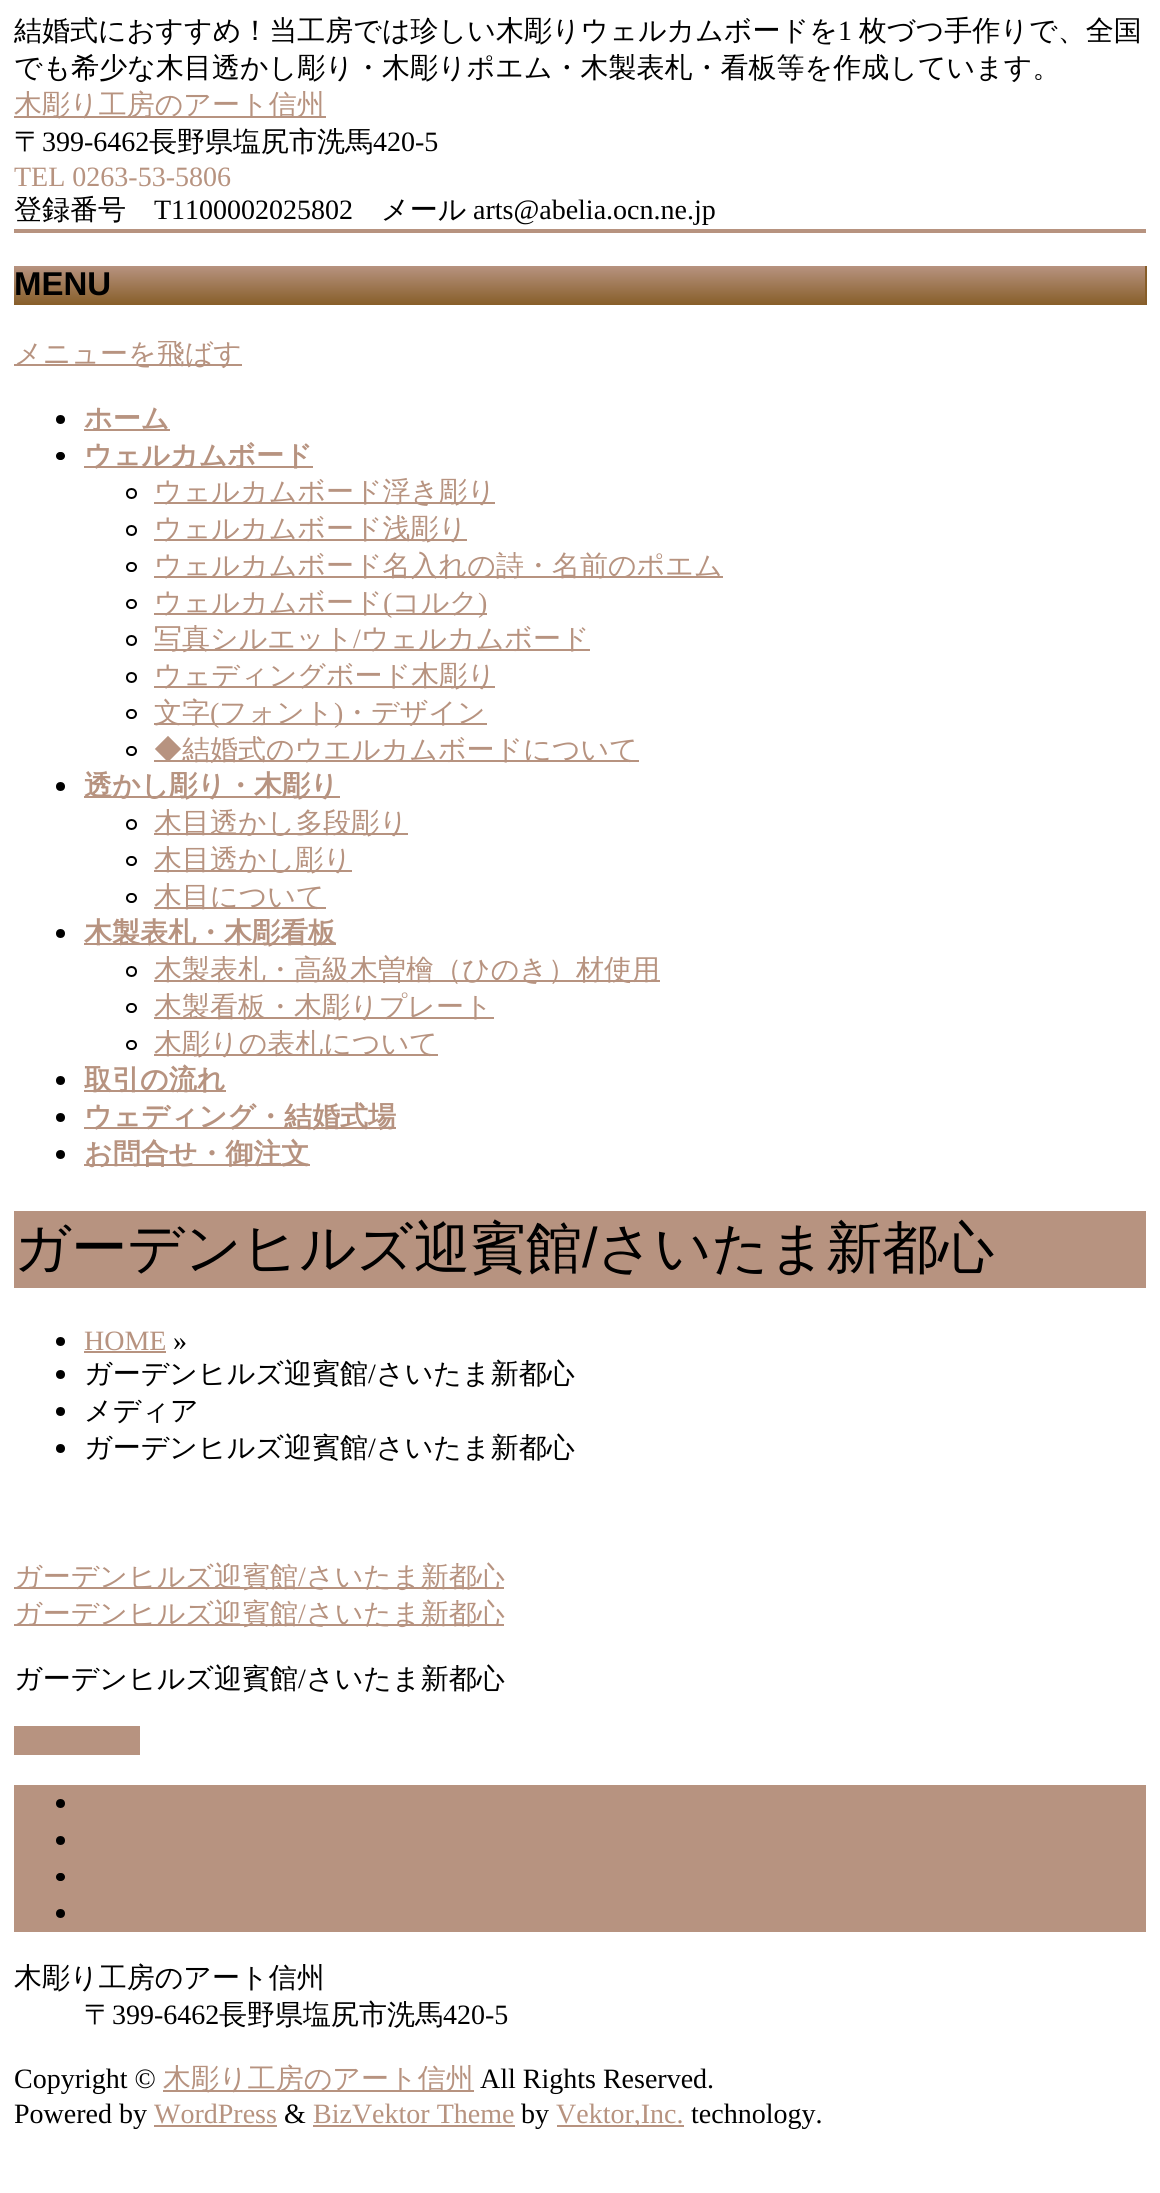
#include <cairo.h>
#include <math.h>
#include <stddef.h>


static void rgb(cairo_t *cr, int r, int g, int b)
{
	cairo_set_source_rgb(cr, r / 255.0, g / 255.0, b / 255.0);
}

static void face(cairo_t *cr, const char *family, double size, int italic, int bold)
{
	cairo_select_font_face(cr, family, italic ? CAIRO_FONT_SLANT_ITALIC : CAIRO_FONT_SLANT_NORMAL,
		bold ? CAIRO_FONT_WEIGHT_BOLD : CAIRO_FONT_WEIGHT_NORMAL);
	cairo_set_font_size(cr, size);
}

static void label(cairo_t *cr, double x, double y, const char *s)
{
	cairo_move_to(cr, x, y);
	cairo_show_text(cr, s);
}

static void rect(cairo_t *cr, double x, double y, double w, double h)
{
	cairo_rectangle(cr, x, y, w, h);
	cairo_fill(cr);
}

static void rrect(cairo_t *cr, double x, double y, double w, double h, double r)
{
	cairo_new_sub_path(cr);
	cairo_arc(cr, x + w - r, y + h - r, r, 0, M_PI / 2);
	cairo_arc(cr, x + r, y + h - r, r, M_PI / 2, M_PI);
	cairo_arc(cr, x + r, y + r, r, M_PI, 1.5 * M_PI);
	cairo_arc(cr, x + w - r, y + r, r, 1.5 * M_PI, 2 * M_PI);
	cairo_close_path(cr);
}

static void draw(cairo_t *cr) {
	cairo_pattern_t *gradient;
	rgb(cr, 255, 255, 255);
	cairo_paint(cr);
	face(cr, "WenQuanYi Zen Hei Medium", 28, 0, 0);
	rgb(cr, 0, 0, 0);
	label(cr, 14, 40, "結婚式におすすめ！当工房では珍しい木彫りウェルカムボードを");
	face(cr, "Liberation Serif", 28, 0, 0);
	label(cr, 838, 40, "1");
	face(cr, "WenQuanYi Zen Hei Medium", 28, 0, 0);
	label(cr, 859, 40, "枚づつ手作りで、全国");
	label(cr, 14, 77, "でも希少な木目透かし彫り・木彫りポエム・木製表札・看板等を作成しています。");
	rgb(cr, 183, 147, 128);
	rect(cr, 14, 116, 312, 2);
	label(cr, 14, 114, "木彫り工房のアート信州");
	rgb(cr, 0, 0, 0);
	label(cr, 14, 151, "〒");
	face(cr, "Liberation Serif", 28, 0, 0);
	label(cr, 42, 151, "399-6462");
	face(cr, "WenQuanYi Zen Hei Medium", 28, 0, 0);
	label(cr, 149, 151, "長野県塩尻市洗馬");
	face(cr, "Liberation Serif", 28, 0, 0);
	label(cr, 373, 151, "420-5");
	rgb(cr, 183, 147, 128);
	label(cr, 14, 186, "TEL 0263-53-5806");
	face(cr, "WenQuanYi Zen Hei Medium", 28, 0, 0);
	rgb(cr, 0, 0, 0);
	label(cr, 14, 219, "登録番号");
	face(cr, "Liberation Serif", 28, 0, 0);
	label(cr, 154, 219, "T1100002025802");
	face(cr, "WenQuanYi Zen Hei Medium", 28, 0, 0);
	label(cr, 381, 219, "メール");
	face(cr, "Liberation Serif", 28, 0, 0);
	label(cr, 473, 219, "arts@abelia.ocn.ne.jp");
	rgb(cr, 183, 147, 128);
	rect(cr, 14, 229, 1132, 4);
	gradient = cairo_pattern_create_linear(579, 266, 579, 305);
	cairo_pattern_add_color_stop_rgba(gradient, 0, 0.718, 0.576, 0.502, 1);
	cairo_pattern_add_color_stop_rgba(gradient, 1, 0.529, 0.369, 0.161, 1);
	cairo_set_source(cr, gradient);
	cairo_pattern_destroy(gradient);
	rect(cr, 14, 266, 1131, 39);
	rgb(cr, 135, 94, 41);
	rect(cr, 1145, 266, 2, 39);
	face(cr, "Liberation Sans", 33, 0, 1);
	rgb(cr, 0, 0, 0);
	label(cr, 14, 295, "MENU");
	rgb(cr, 183, 147, 128);
	rect(cr, 14, 364, 228, 2);
	face(cr, "WenQuanYi Zen Hei Medium", 28, 0, 0);
	label(cr, 14, 363, "メニューを飛ばす");
	rgb(cr, 0, 0, 0);
	cairo_new_path(cr);
	cairo_arc(cr, 60.5, 419.5, 4.5, 0, 2 * M_PI);
	cairo_fill(cr);
	rgb(cr, 183, 147, 128);
	rect(cr, 84, 429, 86, 2);
	face(cr, "WenQuanYi Zen Hei", 28, 0, 1);
	label(cr, 84, 428, "ホーム");
	rgb(cr, 0, 0, 0);
	rrect(cr, 56, 452, 9, 8, 4);
	cairo_fill(cr);
	rgb(cr, 183, 147, 128);
	rect(cr, 84, 466, 229, 2);
	label(cr, 84, 465, "ウェルカムボード");
	cairo_new_path(cr);
	cairo_arc(cr, 131.5, 493.5, 4.5, 0, 2 * M_PI);
	rgb(cr, 0, 0, 0);
	cairo_stroke(cr);
	rgb(cr, 183, 147, 128);
	rect(cr, 154, 502, 341, 2);
	face(cr, "WenQuanYi Zen Hei Medium", 28, 0, 0);
	label(cr, 154, 501, "ウェルカムボード浮き彫り");
	cairo_new_path(cr);
	cairo_arc(cr, 131.5, 530.5, 4.5, 0, 2 * M_PI);
	rgb(cr, 0, 0, 0);
	cairo_stroke(cr);
	rgb(cr, 183, 147, 128);
	rect(cr, 154, 539, 313, 2);
	label(cr, 154, 538, "ウェルカムボード浅彫り");
	rrect(cr, 127, 563, 9, 8, 4);
	rgb(cr, 0, 0, 0);
	cairo_stroke(cr);
	rgb(cr, 183, 147, 128);
	rect(cr, 154, 576, 569, 2);
	label(cr, 154, 575, "ウェルカムボード名入れの詩・名前のポエム");
	rrect(cr, 127, 600, 9, 8, 4);
	rgb(cr, 0, 0, 0);
	cairo_stroke(cr);
	rgb(cr, 183, 147, 128);
	rect(cr, 154, 613, 333, 2);
	label(cr, 154, 612, "ウェルカムボード");
	face(cr, "Liberation Serif", 28, 0, 0);
	label(cr, 383, 612, "(");
	face(cr, "WenQuanYi Zen Hei Medium", 28, 0, 0);
	label(cr, 392, 612, "コルク");
	face(cr, "Liberation Serif", 28, 0, 0);
	label(cr, 478, 612, ")");
	cairo_new_path(cr);
	cairo_arc(cr, 131.5, 640.5, 4.5, 0, 2 * M_PI);
	rgb(cr, 0, 0, 0);
	cairo_stroke(cr);
	rgb(cr, 183, 147, 128);
	rect(cr, 154, 649, 436, 2);
	face(cr, "WenQuanYi Zen Hei Medium", 28, 0, 0);
	label(cr, 154, 648, "写真シルエット");
	face(cr, "Liberation Serif", 28, 0, 0);
	label(cr, 353, 648, "/");
	face(cr, "WenQuanYi Zen Hei Medium", 28, 0, 0);
	label(cr, 361, 648, "ウェルカムボード");
	cairo_new_path(cr);
	cairo_arc(cr, 131.5, 677.5, 4.5, 0, 2 * M_PI);
	rgb(cr, 0, 0, 0);
	cairo_stroke(cr);
	rgb(cr, 183, 147, 128);
	rect(cr, 154, 686, 341, 2);
	label(cr, 154, 685, "ウェディングボード木彫り");
	rrect(cr, 127, 710, 9, 8, 4);
	rgb(cr, 0, 0, 0);
	cairo_stroke(cr);
	rgb(cr, 183, 147, 128);
	rect(cr, 154, 723, 333, 2);
	label(cr, 154, 722, "文字");
	face(cr, "Liberation Serif", 28, 0, 0);
	label(cr, 210, 722, "(");
	face(cr, "WenQuanYi Zen Hei Medium", 28, 0, 0);
	label(cr, 219, 722, "フォント");
	face(cr, "Liberation Serif", 28, 0, 0);
	label(cr, 334, 722, ")");
	face(cr, "WenQuanYi Zen Hei Medium", 28, 0, 0);
	label(cr, 343, 722, "・デザイン");
	rrect(cr, 127, 747, 9, 8, 4);
	rgb(cr, 0, 0, 0);
	cairo_stroke(cr);
	rgb(cr, 183, 147, 128);
	rect(cr, 154, 760, 485, 2);
	label(cr, 154, 759, "◆結婚式のウエルカムボードについて");
	rgb(cr, 0, 0, 0);
	cairo_new_path(cr);
	cairo_arc(cr, 60.5, 786.5, 4.5, 0, 2 * M_PI);
	cairo_fill(cr);
	rgb(cr, 183, 147, 128);
	rect(cr, 84, 796, 256, 2);
	face(cr, "WenQuanYi Zen Hei", 28, 0, 1);
	label(cr, 84, 795, "透かし彫り・木彫り");
	cairo_new_path(cr);
	cairo_arc(cr, 131.5, 824.5, 4.5, 0, 2 * M_PI);
	rgb(cr, 0, 0, 0);
	cairo_stroke(cr);
	rgb(cr, 183, 147, 128);
	rect(cr, 154, 833, 254, 2);
	face(cr, "WenQuanYi Zen Hei Medium", 28, 0, 0);
	label(cr, 154, 832, "木目透かし多段彫り");
	rrect(cr, 127, 857, 9, 8, 4);
	rgb(cr, 0, 0, 0);
	cairo_stroke(cr);
	rgb(cr, 183, 147, 128);
	rect(cr, 154, 870, 198, 2);
	label(cr, 154, 869, "木目透かし彫り");
	rrect(cr, 127, 894, 9, 8, 4);
	rgb(cr, 0, 0, 0);
	cairo_stroke(cr);
	rgb(cr, 183, 147, 128);
	rect(cr, 154, 907, 172, 2);
	label(cr, 154, 906, "木目について");
	rgb(cr, 0, 0, 0);
	cairo_new_path(cr);
	cairo_arc(cr, 60.5, 933.5, 4.5, 0, 2 * M_PI);
	cairo_fill(cr);
	rgb(cr, 183, 147, 128);
	rect(cr, 84, 943, 252, 2);
	face(cr, "WenQuanYi Zen Hei", 28, 0, 1);
	label(cr, 84, 942, "木製表札・木彫看板");
	cairo_new_path(cr);
	cairo_arc(cr, 131.5, 971.5, 4.5, 0, 2 * M_PI);
	rgb(cr, 0, 0, 0);
	cairo_stroke(cr);
	rgb(cr, 183, 147, 128);
	rect(cr, 154, 980, 506, 2);
	face(cr, "WenQuanYi Zen Hei Medium", 28, 0, 0);
	label(cr, 154, 979, "木製表札・高級木曽檜（ひのき）材使用");
	rrect(cr, 127, 1004, 9, 8, 4);
	rgb(cr, 0, 0, 0);
	cairo_stroke(cr);
	rgb(cr, 183, 147, 128);
	rect(cr, 154, 1017, 340, 2);
	label(cr, 154, 1016, "木製看板・木彫りプレート");
	rrect(cr, 127, 1041, 9, 8, 4);
	rgb(cr, 0, 0, 0);
	cairo_stroke(cr);
	rgb(cr, 183, 147, 128);
	rect(cr, 154, 1054, 284, 2);
	label(cr, 154, 1053, "木彫りの表札について");
	rgb(cr, 0, 0, 0);
	cairo_new_path(cr);
	cairo_arc(cr, 60.5, 1080.5, 4.5, 0, 2 * M_PI);
	cairo_fill(cr);
	rgb(cr, 183, 147, 128);
	rect(cr, 84, 1090, 142, 2);
	face(cr, "WenQuanYi Zen Hei", 28, 0, 1);
	label(cr, 84, 1089, "取引の流れ");
	rgb(cr, 0, 0, 0);
	cairo_new_path(cr);
	cairo_arc(cr, 60.5, 1117.5, 4.5, 0, 2 * M_PI);
	cairo_fill(cr);
	rgb(cr, 183, 147, 128);
	rect(cr, 84, 1127, 312, 2);
	label(cr, 84, 1126, "ウェディング・結婚式場");
	rgb(cr, 0, 0, 0);
	cairo_new_path(cr);
	cairo_arc(cr, 60.5, 1154.5, 4.5, 0, 2 * M_PI);
	cairo_fill(cr);
	rgb(cr, 183, 147, 128);
	rect(cr, 84, 1164, 226, 2);
	label(cr, 84, 1163, "お問合せ・御注文");
	rect(cr, 14, 1211, 1132, 77);
	face(cr, "WenQuanYi Zen Hei Medium", 56, 0, 0);
	rgb(cr, 0, 0, 0);
	label(cr, 14, 1267, "ガーデンヒルズ迎賓館");
	face(cr, "Liberation Sans", 56, 0, 0);
	label(cr, 582, 1267, "/");
	face(cr, "WenQuanYi Zen Hei Medium", 56, 0, 0);
	label(cr, 597, 1267, "さいたま新都心");
	cairo_new_path(cr);
	cairo_arc(cr, 60.5, 1341.5, 4.5, 0, 2 * M_PI);
	cairo_fill(cr);
	face(cr, "Liberation Serif", 28, 0, 0);
	rgb(cr, 183, 147, 128);
	label(cr, 84, 1350, "HOME");
	rect(cr, 84, 1351, 82, 2);
	rgb(cr, 0, 0, 0);
	label(cr, 173, 1350, "»");
	cairo_new_path(cr);
	cairo_arc(cr, 60.5, 1374.5, 4.5, 0, 2 * M_PI);
	cairo_fill(cr);
	face(cr, "WenQuanYi Zen Hei Medium", 28, 0, 0);
	label(cr, 84, 1383, "ガーデンヒルズ迎賓館");
	face(cr, "Liberation Serif", 28, 0, 0);
	label(cr, 368, 1383, "/");
	face(cr, "WenQuanYi Zen Hei Medium", 28, 0, 0);
	label(cr, 376, 1383, "さいたま新都心");
	cairo_new_path(cr);
	cairo_arc(cr, 60.5, 1411.5, 4.5, 0, 2 * M_PI);
	cairo_fill(cr);
	label(cr, 84, 1420, "メディア");
	cairo_new_path(cr);
	cairo_arc(cr, 60.5, 1448.5, 4.5, 0, 2 * M_PI);
	cairo_fill(cr);
	label(cr, 84, 1457, "ガーデンヒルズ迎賓館");
	face(cr, "Liberation Serif", 28, 0, 0);
	label(cr, 368, 1457, "/");
	face(cr, "WenQuanYi Zen Hei Medium", 28, 0, 0);
	label(cr, 376, 1457, "さいたま新都心");
	rgb(cr, 183, 147, 128);
	rect(cr, 14, 1587, 490, 2);
	label(cr, 14, 1586, "ガーデンヒルズ迎賓館");
	face(cr, "Liberation Serif", 28, 0, 0);
	label(cr, 298, 1586, "/");
	face(cr, "WenQuanYi Zen Hei Medium", 28, 0, 0);
	label(cr, 306, 1586, "さいたま新都心");
	rect(cr, 14, 1624, 490, 2);
	label(cr, 14, 1623, "ガーデンヒルズ迎賓館");
	face(cr, "Liberation Serif", 28, 0, 0);
	label(cr, 298, 1623, "/");
	face(cr, "WenQuanYi Zen Hei Medium", 28, 0, 0);
	label(cr, 306, 1623, "さいたま新都心");
	rgb(cr, 0, 0, 0);
	label(cr, 14, 1688, "ガーデンヒルズ迎賓館");
	face(cr, "Liberation Serif", 28, 0, 0);
	label(cr, 298, 1688, "/");
	face(cr, "WenQuanYi Zen Hei Medium", 28, 0, 0);
	label(cr, 306, 1688, "さいたま新都心");
	rgb(cr, 183, 147, 128);
	rect(cr, 14, 1726, 126, 29);
	rect(cr, 14, 1785, 1132, 147);
	rgb(cr, 0, 0, 0);
	cairo_new_path(cr);
	cairo_arc(cr, 60.5, 1803.5, 4.5, 0, 2 * M_PI);
	cairo_fill(cr);
	cairo_arc(cr, 60.5, 1840.5, 4.5, 0, 2 * M_PI);
	cairo_fill(cr);
	rrect(cr, 56, 1873, 9, 8, 4);
	cairo_fill(cr);
	cairo_arc(cr, 60.5, 1913.5, 4.5, 0, 2 * M_PI);
	cairo_fill(cr);
	label(cr, 14, 1987, "木彫り工房のアート信州");
	label(cr, 84, 2024, "〒");
	face(cr, "Liberation Serif", 28, 0, 0);
	label(cr, 112, 2024, "399-6462");
	face(cr, "WenQuanYi Zen Hei Medium", 28, 0, 0);
	label(cr, 219, 2024, "長野県塩尻市洗馬");
	face(cr, "Liberation Serif", 28, 0, 0);
	label(cr, 443, 2024, "420-5");
	label(cr, 14, 2088, "Copyright ©");
	rgb(cr, 183, 147, 128);
	rect(cr, 163, 2090, 311, 2);
	face(cr, "WenQuanYi Zen Hei Medium", 28, 0, 0);
	label(cr, 163, 2088, "木彫り工房のアート信州");
	face(cr, "Liberation Serif", 28, 0, 0);
	rgb(cr, 0, 0, 0);
	label(cr, 480, 2088, "All Rights Reserved.");
	label(cr, 14, 2123, "Powered by");
	rgb(cr, 183, 147, 128);
	label(cr, 154, 2123, "WordPress");
	rect(cr, 154, 2125, 123, 2);
	rgb(cr, 0, 0, 0);
	label(cr, 284, 2123, "&");
	rgb(cr, 183, 147, 128);
	label(cr, 313, 2123, "BizVektor Theme");
	rect(cr, 313, 2125, 202, 2);
	rgb(cr, 0, 0, 0);
	label(cr, 521, 2123, "by");
	rgb(cr, 183, 147, 128);
	rect(cr, 557, 2125, 127, 2);
	label(cr, 556, 2123, "Vektor,Inc.");
	rgb(cr, 0, 0, 0);
	label(cr, 691, 2123, "technology.");
}

int main(void) {
	cairo_surface_t *surface = cairo_image_surface_create(CAIRO_FORMAT_RGB24, 1160, 2193);
	cairo_t *cr = cairo_create(surface);
	cairo_font_options_t *options = cairo_font_options_create();
	cairo_font_options_set_hint_metrics(options, CAIRO_HINT_METRICS_OFF);
	cairo_font_options_set_hint_style(options, CAIRO_HINT_STYLE_NONE);
	cairo_set_font_options(cr, options);
	cairo_set_miter_limit(cr, 4);
	draw(cr);
	cairo_surface_write_to_png(surface, "render.png");
	cairo_font_options_destroy(options);
	cairo_destroy(cr);
	cairo_surface_destroy(surface);
	return 0;
}
